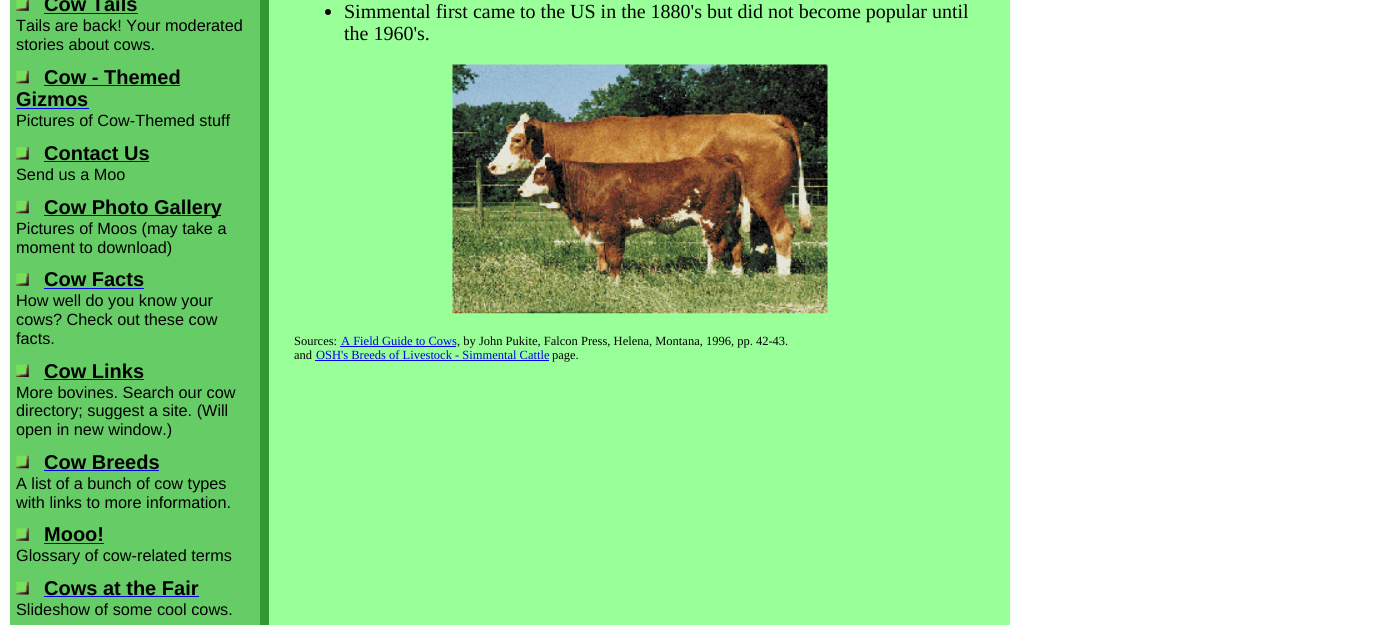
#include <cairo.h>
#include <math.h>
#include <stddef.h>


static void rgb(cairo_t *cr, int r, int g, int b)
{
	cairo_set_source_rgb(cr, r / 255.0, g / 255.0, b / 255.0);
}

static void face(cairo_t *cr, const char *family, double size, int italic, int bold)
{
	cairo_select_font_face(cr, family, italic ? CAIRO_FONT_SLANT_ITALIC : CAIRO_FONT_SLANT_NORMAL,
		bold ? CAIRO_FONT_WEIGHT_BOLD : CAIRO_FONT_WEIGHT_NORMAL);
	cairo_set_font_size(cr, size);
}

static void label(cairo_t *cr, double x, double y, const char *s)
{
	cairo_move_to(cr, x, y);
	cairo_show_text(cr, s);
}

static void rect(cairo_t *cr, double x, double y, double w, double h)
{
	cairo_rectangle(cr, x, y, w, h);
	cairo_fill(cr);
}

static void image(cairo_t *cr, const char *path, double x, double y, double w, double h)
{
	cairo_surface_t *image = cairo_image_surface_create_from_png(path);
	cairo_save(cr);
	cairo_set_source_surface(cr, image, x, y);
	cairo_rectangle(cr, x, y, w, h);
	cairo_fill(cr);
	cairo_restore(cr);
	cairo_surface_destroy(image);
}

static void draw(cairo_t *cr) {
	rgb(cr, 255, 255, 255);
	cairo_paint(cr);
	rgb(cr, 153, 255, 153);
	rect(cr, 269, 0, 741, 625);
	rgb(cr, 102, 204, 102);
	rect(cr, 10, 0, 250, 625);
	image(cr, "image0.png", 16, 0, 13, 11);
	face(cr, "Liberation Sans", 20, 0, 1);
	rgb(cr, 0, 0, 0);
	label(cr, 44, 11, "Cow Tails");
	rgb(cr, 0, 0, 238);
	rect(cr, 44, 13, 94, 1);
	face(cr, "Liberation Sans", 16.25, 0, 0);
	rgb(cr, 0, 0, 0);
	label(cr, 16, 31, "Tails are back! Your moderated");
	label(cr, 16, 50, "stories about cows.");
	image(cr, "image1.png", 16, 70, 13, 14);
	face(cr, "Liberation Sans", 20, 0, 1);
	label(cr, 44, 84, "Cow - Themed");
	rgb(cr, 0, 0, 238);
	rect(cr, 44, 85, 136, 1);
	rgb(cr, 0, 0, 0);
	label(cr, 16, 106, "Gizmos");
	rgb(cr, 0, 0, 238);
	rect(cr, 16, 108, 73, 1);
	face(cr, "Liberation Sans", 16.25, 0, 0);
	rgb(cr, 0, 0, 0);
	label(cr, 16, 126, "Pictures of Cow-Themed stuff");
	image(cr, "image2.png", 16, 147, 13, 13);
	face(cr, "Liberation Sans", 20, 0, 1);
	label(cr, 44, 160, "Contact Us");
	rgb(cr, 0, 0, 238);
	rect(cr, 44, 161, 105, 1);
	face(cr, "Liberation Sans", 16.25, 0, 0);
	rgb(cr, 0, 0, 0);
	label(cr, 16, 180, "Send us a Moo");
	image(cr, "image1.png", 16, 200, 13, 14);
	rgb(cr, 0, 0, 238);
	rect(cr, 44, 215, 177, 1);
	face(cr, "Liberation Sans", 20, 0, 1);
	rgb(cr, 0, 0, 0);
	label(cr, 44, 214, "Cow Photo Gallery");
	face(cr, "Liberation Sans", 16.25, 0, 0);
	label(cr, 16, 234, "Pictures of Moos (may take a");
	label(cr, 16, 253, "moment to download)");
	image(cr, "image3.png", 16, 273, 13, 13);
	face(cr, "Liberation Sans", 20, 0, 1);
	label(cr, 44, 286, "Cow Facts");
	rgb(cr, 0, 0, 238);
	rect(cr, 44, 288, 100, 1);
	face(cr, "Liberation Sans", 16.25, 0, 0);
	rgb(cr, 0, 0, 0);
	label(cr, 16, 306, "How well do you know your");
	label(cr, 16, 325, "cows? Check out these cow");
	label(cr, 16, 344, "facts.");
	image(cr, "image4.png", 16, 364, 13, 13);
	face(cr, "Liberation Sans", 20, 0, 1);
	label(cr, 44, 378, "Cow Links");
	rgb(cr, 0, 0, 238);
	rect(cr, 44, 379, 100, 1);
	face(cr, "Liberation Sans", 16.25, 0, 0);
	rgb(cr, 0, 0, 0);
	label(cr, 16, 398, "More bovines. Search our cow");
	label(cr, 16, 416, "directory; suggest a site. (Will");
	label(cr, 16, 435, "open in new window.)");
	image(cr, "image1.png", 16, 455, 13, 14);
	face(cr, "Liberation Sans", 20, 0, 1);
	label(cr, 44, 469, "Cow Breeds");
	rgb(cr, 0, 0, 238);
	rect(cr, 44, 470, 115, 1);
	face(cr, "Liberation Sans", 16.25, 0, 0);
	rgb(cr, 0, 0, 0);
	label(cr, 16, 489, "A list of a bunch of cow types");
	label(cr, 16, 508, "with links to more information.");
	image(cr, "image3.png", 16, 528, 13, 13);
	face(cr, "Liberation Sans", 20, 0, 1);
	label(cr, 44, 541, "Mooo!");
	rgb(cr, 0, 0, 238);
	rect(cr, 44, 543, 60, 1);
	face(cr, "Liberation Sans", 16.25, 0, 0);
	rgb(cr, 0, 0, 0);
	label(cr, 16, 561, "Glossary of cow-related terms");
	image(cr, "image2.png", 16, 582, 13, 13);
	face(cr, "Liberation Sans", 20, 0, 1);
	label(cr, 44, 595, "Cows at the Fair");
	rgb(cr, 0, 0, 238);
	rect(cr, 44, 596, 155, 1);
	face(cr, "Liberation Sans", 16.25, 0, 0);
	rgb(cr, 0, 0, 0);
	label(cr, 16, 615, "Slideshow of some cool cows.");
	rgb(cr, 51, 153, 51);
	rect(cr, 260, 0, 9, 625);
	rgb(cr, 0, 0, 0);
	cairo_new_path(cr);
	cairo_arc(cr, 328, 12, 3, 0, 2 * M_PI);
	cairo_fill(cr);
	face(cr, "Liberation Serif", 20, 0, 0);
	label(cr, 344, 18, "Simmental first came to the US in the 1880's but did not become popular until");
	label(cr, 344, 40, "the 1960's.");
	image(cr, "image5.png", 452, 64, 376, 250);
	face(cr, "Liberation Serif", 12.5, 0, 0);
	label(cr, 294, 345, "Sources:");
	rgb(cr, 0, 0, 238);
	label(cr, 341, 345, "A Field Guide to Cows");
	rgb(cr, 0, 0, 0);
	label(cr, 457, 345, ", by John Pukite, Falcon Press, Helena, Montana, 1996, pp. 42-43.");
	rgb(cr, 0, 0, 238);
	rect(cr, 340, 346, 116, 1);
	rgb(cr, 0, 0, 0);
	label(cr, 294, 359, "and");
	rgb(cr, 0, 0, 238);
	label(cr, 316, 359, "OSH's Breeds of Livestock - Simmental Cattle");
	rgb(cr, 0, 0, 0);
	label(cr, 552, 359, "page.");
	rgb(cr, 0, 0, 238);
	rect(cr, 315, 360, 234, 1);
}

int main(void) {
	cairo_surface_t *surface = cairo_image_surface_create(CAIRO_FORMAT_RGB24, 1377, 625);
	cairo_t *cr = cairo_create(surface);
	cairo_font_options_t *options = cairo_font_options_create();
	cairo_font_options_set_hint_metrics(options, CAIRO_HINT_METRICS_OFF);
	cairo_font_options_set_hint_style(options, CAIRO_HINT_STYLE_NONE);
	cairo_set_font_options(cr, options);
	cairo_set_miter_limit(cr, 4);
	draw(cr);
	cairo_surface_write_to_png(surface, "render.png");
	cairo_font_options_destroy(options);
	cairo_destroy(cr);
	cairo_surface_destroy(surface);
	return 0;
}
